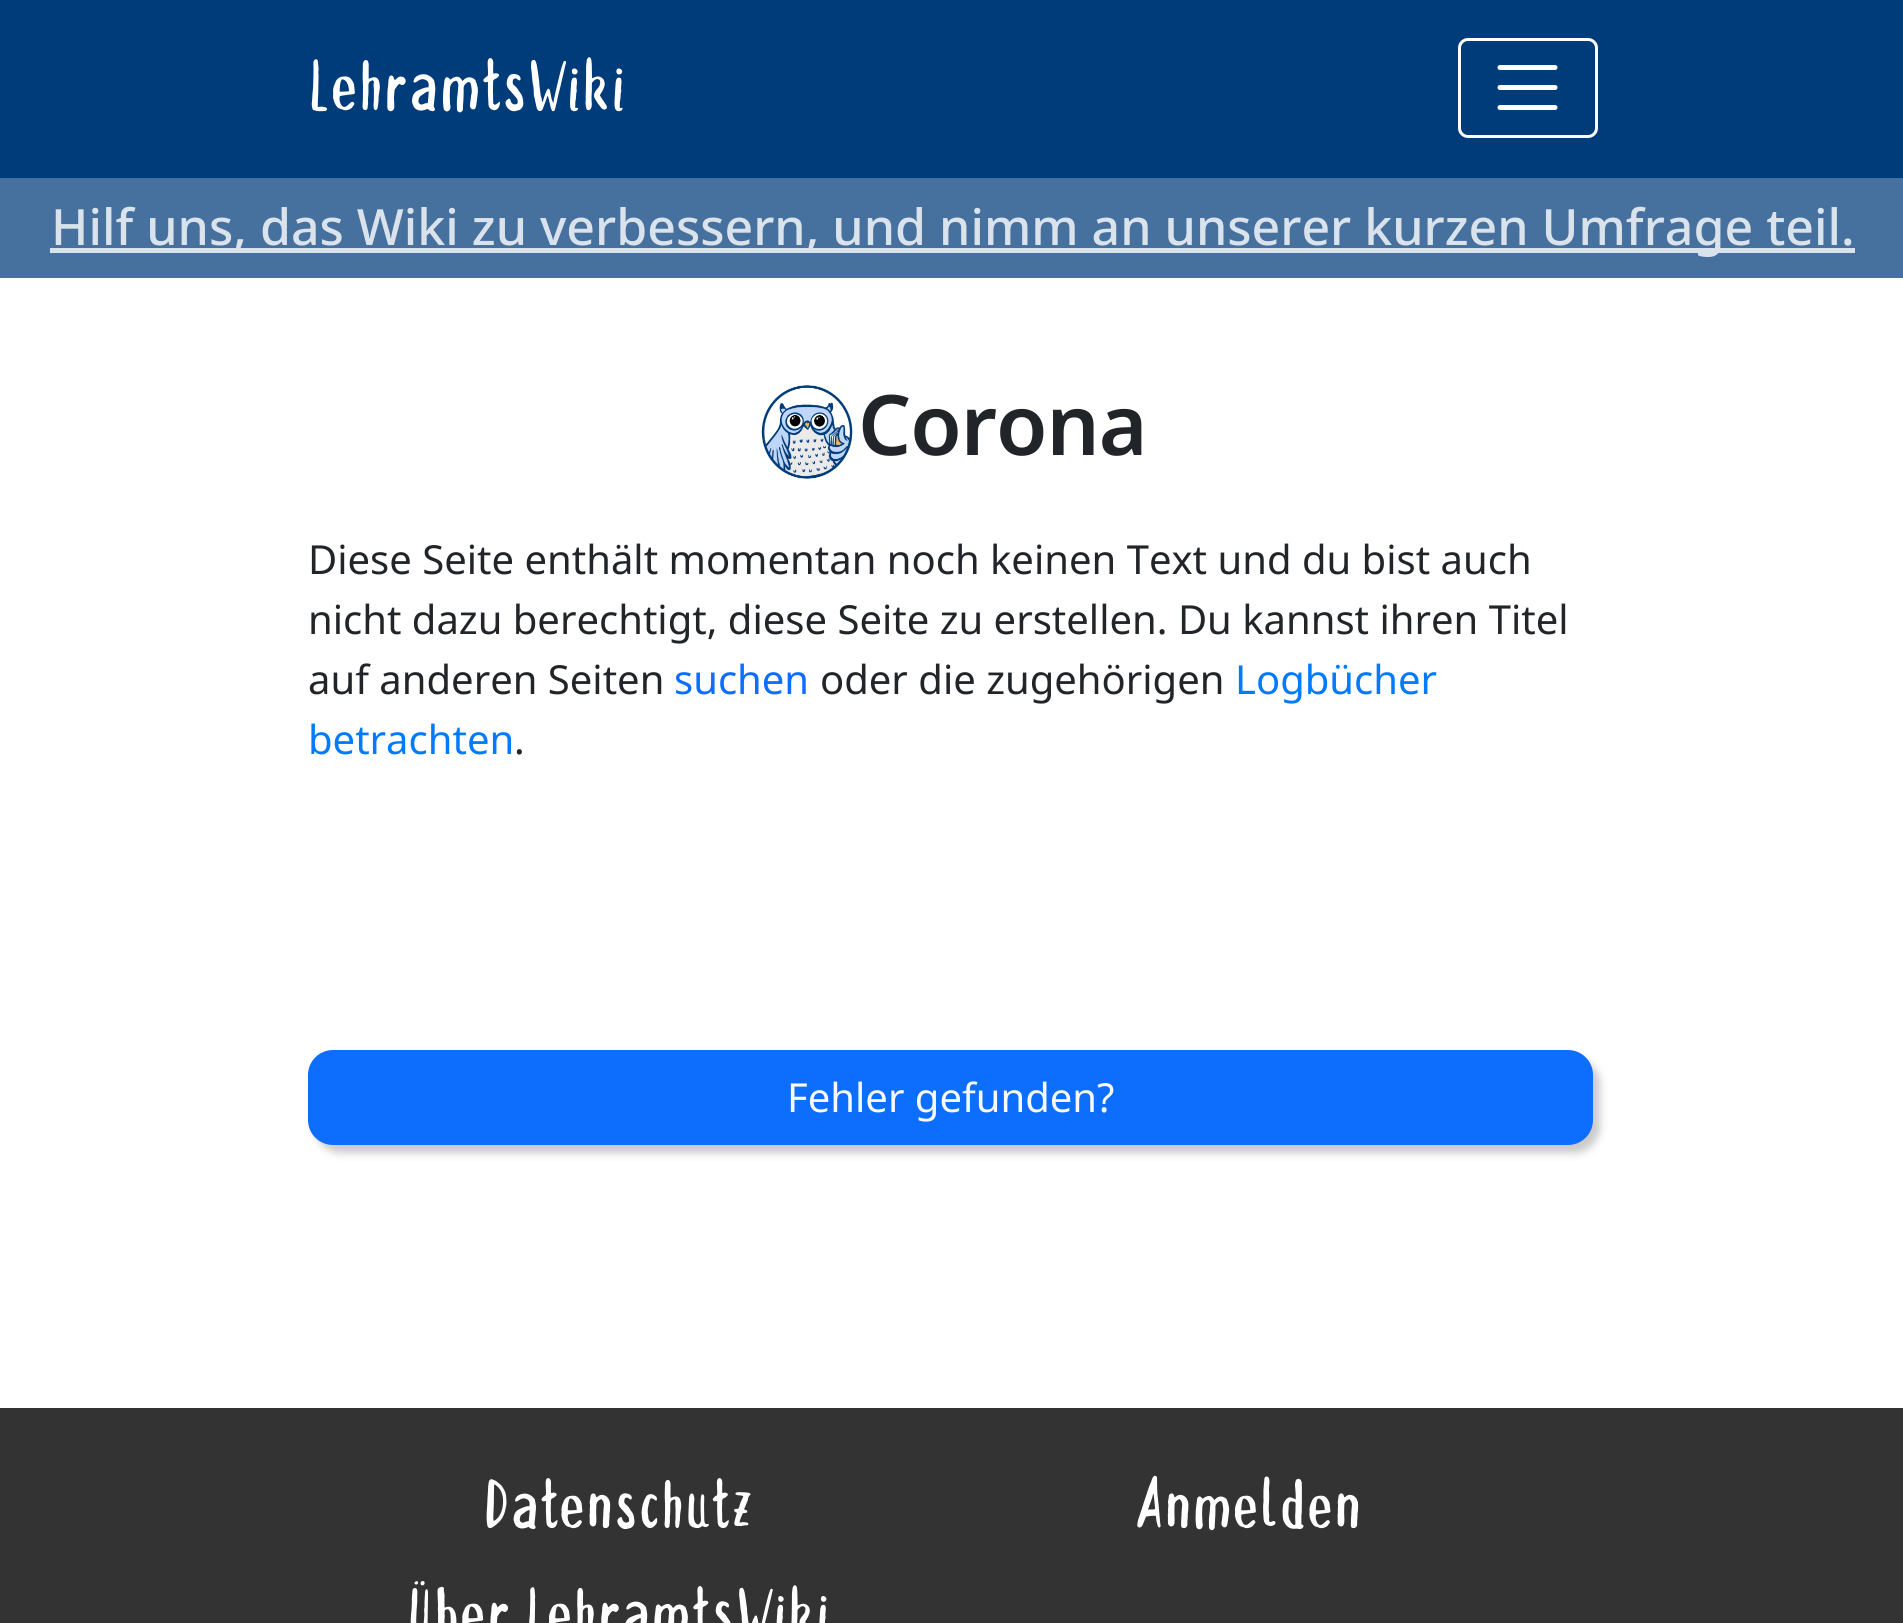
#include <cairo.h>
#include <math.h>
#include <stddef.h>


static void rgb(cairo_t *cr, int r, int g, int b)
{
	cairo_set_source_rgb(cr, r / 255.0, g / 255.0, b / 255.0);
}

static void face(cairo_t *cr, const char *family, double size, int italic, int bold)
{
	cairo_select_font_face(cr, family, italic ? CAIRO_FONT_SLANT_ITALIC : CAIRO_FONT_SLANT_NORMAL,
		bold ? CAIRO_FONT_WEIGHT_BOLD : CAIRO_FONT_WEIGHT_NORMAL);
	cairo_set_font_size(cr, size);
}

static void label(cairo_t *cr, double x, double y, const char *s)
{
	cairo_move_to(cr, x, y);
	cairo_show_text(cr, s);
}

static void tracked(cairo_t *cr, double x, double y, const char *s, double letter, double word)
{
	cairo_move_to(cr, x, y);
	while (*s) {
		char ch[5] = {0};
		int n = 0;
		do ch[n++] = *s++; while ((*s & 0xC0) == 0x80);
		cairo_show_text(cr, ch);
		cairo_rel_move_to(cr, letter + word * (*ch == ' '), 0);
	}
}

static void rect(cairo_t *cr, double x, double y, double w, double h)
{
	cairo_rectangle(cr, x, y, w, h);
	cairo_fill(cr);
}

static void rrect(cairo_t *cr, double x, double y, double w, double h, double r)
{
	cairo_new_sub_path(cr);
	cairo_arc(cr, x + w - r, y + h - r, r, 0, M_PI / 2);
	cairo_arc(cr, x + r, y + h - r, r, M_PI / 2, M_PI);
	cairo_arc(cr, x + r, y + r, r, M_PI, 1.5 * M_PI);
	cairo_arc(cr, x + w - r, y + r, r, 1.5 * M_PI, 2 * M_PI);
	cairo_close_path(cr);
}

static void soft_shadow(cairo_t *cr, double x, double y, double w, double h, double r, double blur, double alpha)
{
	cairo_push_group_with_content(cr, CAIRO_CONTENT_ALPHA);
	cairo_set_operator(cr, CAIRO_OPERATOR_SOURCE);
	for (int i = 15; i >= -15 && fmin(w, h) + blur * i / 3 > 0; i -= 2) {
		double e = blur * i / 6;
		cairo_set_source_rgba(cr, 0, 0, 0, alpha * erfc((i - 1) / 8.5) / 2);
		rrect(cr, x - e, y - e, w + 2 * e, h + 2 * e, fmax(0, fmin(r + e + blur * .6, fmin(w, h) / 2 + e)));
		cairo_fill(cr);
	}
	cairo_pattern_t *soft = cairo_pop_group(cr);
	cairo_mask(cr, soft);
	cairo_pattern_destroy(soft);
}

static void image(cairo_t *cr, const char *path, double x, double y, double w, double h)
{
	cairo_surface_t *image = cairo_image_surface_create_from_png(path);
	cairo_save(cr);
	cairo_set_source_surface(cr, image, x, y);
	cairo_rectangle(cr, x, y, w, h);
	cairo_fill(cr);
	cairo_restore(cr);
	cairo_surface_destroy(image);
}

static void draw(cairo_t *cr) {
	rgb(cr, 255, 255, 255);
	cairo_paint(cr);
	rgb(cr, 0, 59, 122);
	rect(cr, 0, 0, 1903, 178);
	face(cr, "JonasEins", 75, 0, 0);
	rgb(cr, 255, 255, 255);
	label(cr, 308, 108, "LehramtsWiki");
	rrect(cr, 1459.5, 39.5, 137, 97, 8.5);
	cairo_set_line_width(cr, 3);
	cairo_stroke(cr);
	cairo_new_path(cr);
	cairo_move_to(cr, 1500, 67.5);
	cairo_line_to(cr, 1555, 67.5);
	cairo_move_to(cr, 1500, 87.5);
	cairo_line_to(cr, 1555, 87.5);
	cairo_move_to(cr, 1500, 107.5);
	cairo_line_to(cr, 1555, 107.5);
	cairo_set_line_width(cr, 5);
	cairo_set_line_cap(cr, CAIRO_LINE_CAP_ROUND);
	cairo_stroke(cr);
	rgb(cr, 70, 113, 159);
	rect(cr, 0, 178, 1903, 100);
	rgb(cr, 218, 227, 236);
	rect(cr, 50, 248, 1805, 5);
	face(cr, "Noto Sans Medium", 50, 0, 0);
	label(cr, 51, 245, "Hilf uns, das Wiki zu verbessern, und nimm an unserer kurzen Umfrage teil.");
	image(cr, "image0.png", 761, 385, 92, 94);
	face(cr, "Noto Sans SemiBold", 83.5, 0, 0);
	rgb(cr, 33, 37, 41);
	tracked(cr, 858, 455, "Corona", -1, 0);
	face(cr, "Noto Sans", 40, 0, 0);
	label(cr, 308, 574, "Diese Seite enthält momentan noch keinen Text und du bist auch");
	label(cr, 308, 634, "nicht dazu berechtigt, diese Seite zu erstellen. Du kannst ihren Titel");
	label(cr, 308, 694, "auf anderen Seiten");
	rgb(cr, 13, 110, 253);
	label(cr, 674, 694, "suchen");
	rgb(cr, 33, 37, 41);
	label(cr, 820, 694, "oder die zugehörigen");
	rgb(cr, 0, 123, 255);
	label(cr, 1235, 694, "Logbücher");
	label(cr, 308, 754, "betrachten");
	rgb(cr, 33, 37, 41);
	label(cr, 514, 754, ".");
	rgb(cr, 196, 196, 196);
	soft_shadow(cr, 315, 1058, 1285, 95, 25, 4, 0.9);
	rgb(cr, 13, 110, 253);
	rrect(cr, 309.5, 1051.5, 1282, 92, 23.5);
	cairo_fill_preserve(cr);
	cairo_set_line_width(cr, 3);
	cairo_set_line_cap(cr, CAIRO_LINE_CAP_BUTT);
	cairo_stroke(cr);
	rgb(cr, 248, 249, 250);
	label(cr, 787, 1112, "Fehler gefunden?");
	rgb(cr, 51, 51, 51);
	rect(cr, 0, 1408, 1903, 215);
	face(cr, "JonasEins", 72, 0, 0);
	rgb(cr, 255, 255, 255);
	label(cr, 483, 1526, "Datenschutz");
	label(cr, 407, 1634, "Über LehramtsWiki");
	label(cr, 1135, 1526, "Anmelden");
}

int main(void) {
	cairo_surface_t *surface = cairo_image_surface_create(CAIRO_FORMAT_RGB24, 1903, 1623);
	cairo_t *cr = cairo_create(surface);
	cairo_font_options_t *options = cairo_font_options_create();
	cairo_font_options_set_hint_metrics(options, CAIRO_HINT_METRICS_OFF);
	cairo_font_options_set_hint_style(options, CAIRO_HINT_STYLE_NONE);
	cairo_set_font_options(cr, options);
	cairo_set_miter_limit(cr, 4);
	draw(cr);
	cairo_surface_write_to_png(surface, "render.png");
	cairo_font_options_destroy(options);
	cairo_destroy(cr);
	cairo_surface_destroy(surface);
	return 0;
}
